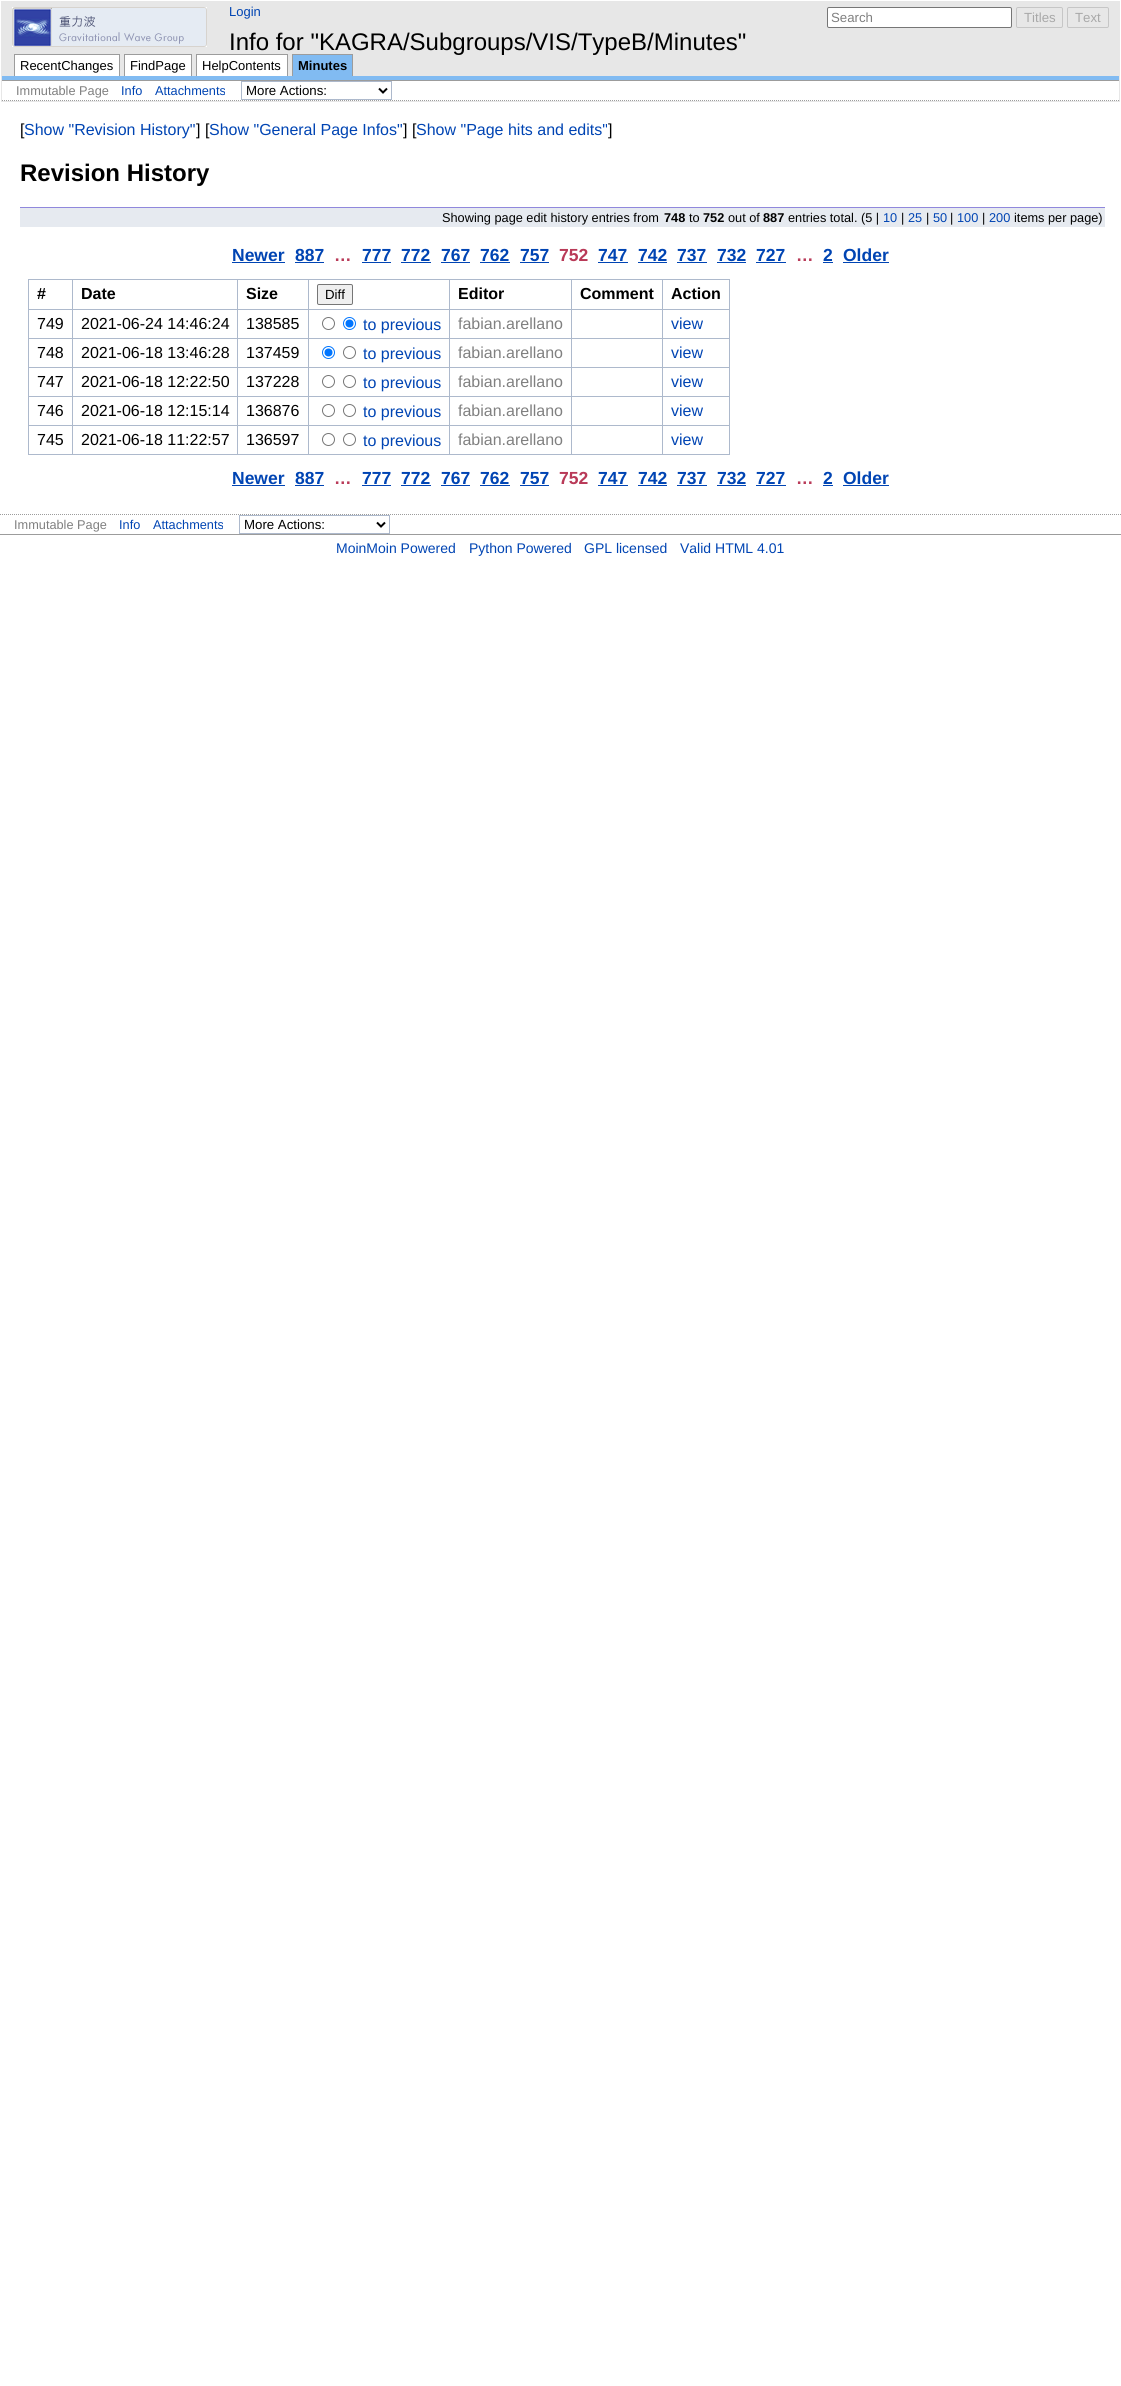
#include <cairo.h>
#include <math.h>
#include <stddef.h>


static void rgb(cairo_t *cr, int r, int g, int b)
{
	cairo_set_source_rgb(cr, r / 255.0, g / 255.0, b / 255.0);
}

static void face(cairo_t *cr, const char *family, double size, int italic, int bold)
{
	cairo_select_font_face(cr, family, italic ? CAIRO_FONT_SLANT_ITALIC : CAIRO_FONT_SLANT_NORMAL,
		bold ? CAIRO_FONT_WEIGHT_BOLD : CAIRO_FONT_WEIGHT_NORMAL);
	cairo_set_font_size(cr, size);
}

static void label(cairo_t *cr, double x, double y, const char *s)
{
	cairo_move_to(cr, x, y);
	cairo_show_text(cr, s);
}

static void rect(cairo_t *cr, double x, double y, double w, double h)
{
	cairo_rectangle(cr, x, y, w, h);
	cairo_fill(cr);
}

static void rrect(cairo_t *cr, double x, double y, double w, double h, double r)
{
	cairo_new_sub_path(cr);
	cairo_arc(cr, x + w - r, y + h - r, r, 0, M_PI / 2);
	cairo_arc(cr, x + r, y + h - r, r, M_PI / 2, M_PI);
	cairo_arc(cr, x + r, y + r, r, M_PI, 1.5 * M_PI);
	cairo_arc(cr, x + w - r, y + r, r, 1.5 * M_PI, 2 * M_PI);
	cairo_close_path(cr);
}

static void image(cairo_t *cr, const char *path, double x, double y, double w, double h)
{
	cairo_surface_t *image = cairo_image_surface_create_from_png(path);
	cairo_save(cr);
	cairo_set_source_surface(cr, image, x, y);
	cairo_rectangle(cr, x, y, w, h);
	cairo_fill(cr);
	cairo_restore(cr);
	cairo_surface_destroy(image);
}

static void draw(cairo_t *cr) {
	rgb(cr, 255, 255, 255);
	cairo_paint(cr);
	rgb(cr, 231, 231, 231);
	rect(cr, 1, 1, 1119, 101);
	image(cr, "image0.png", 12, 7, 195, 40);
	face(cr, "Liberation Sans", 13, 0, 0);
	rgb(cr, 0, 68, 179);
	label(cr, 229, 16, "Login");
	rgb(cr, 255, 255, 255);
	rrect(cr, 827.5, 7.5, 184, 20, 1.5);
	cairo_fill_preserve(cr);
	rgb(cr, 118, 118, 118);
	cairo_set_line_width(cr, 1);
	cairo_stroke(cr);
	face(cr, "Liberation Sans", 13.25, 0, 0);
	rgb(cr, 128, 128, 128);
	label(cr, 831, 22, "Search");
	rrect(cr, 1016.5, 7.5, 46, 20, 1.5);
	rgb(cr, 198, 198, 198);
	cairo_stroke(cr);
	rgb(cr, 168, 168, 168);
	label(cr, 1024, 22, "Titles");
	rrect(cr, 1067.5, 7.5, 41, 20, 1.5);
	rgb(cr, 198, 198, 198);
	cairo_stroke(cr);
	rgb(cr, 168, 168, 168);
	label(cr, 1075, 22, "Text");
	rgb(cr, 156, 156, 156);
	rect(cr, 196, 54, 92, 1);
	rect(cr, 287, 54, 1, 22);
	rect(cr, 292, 54, 61, 1);
	rect(cr, 352, 54, 1, 22);
	rect(cr, 292, 54, 1, 22);
	face(cr, "Liberation Sans", 24, 0, 0);
	rgb(cr, 0, 0, 0);
	label(cr, 229, 50, "Info for \"KAGRA/Subgroups/VIS/TypeB/Minutes\"");
	rgb(cr, 255, 255, 255);
	rect(cr, 15, 55, 104, 21);
	rgb(cr, 156, 156, 156);
	rect(cr, 14, 54, 106, 1);
	rect(cr, 119, 54, 1, 22);
	rect(cr, 14, 54, 1, 22);
	face(cr, "Liberation Sans", 13, 0, 0);
	rgb(cr, 0, 0, 0);
	label(cr, 20, 70, "RecentChanges");
	rgb(cr, 255, 255, 255);
	rect(cr, 125, 55, 66, 21);
	rgb(cr, 156, 156, 156);
	rect(cr, 124, 54, 68, 1);
	rect(cr, 191, 54, 1, 22);
	rect(cr, 124, 54, 1, 22);
	rgb(cr, 0, 0, 0);
	label(cr, 130, 70, "FindPage");
	rgb(cr, 255, 255, 255);
	rect(cr, 197, 55, 90, 21);
	rgb(cr, 156, 156, 156);
	rect(cr, 196, 54, 1, 22);
	rgb(cr, 0, 0, 0);
	label(cr, 202, 70, "HelpContents");
	rgb(cr, 129, 187, 242);
	rect(cr, 293, 55, 59, 21);
	face(cr, "Liberation Sans", 13, 0, 1);
	rgb(cr, 0, 0, 0);
	label(cr, 298, 70, "Minutes");
	rgb(cr, 129, 187, 242);
	rect(cr, 2, 76, 1117, 4);
	rgb(cr, 156, 156, 156);
	rect(cr, 2, 80, 1117, 1);
	rgb(cr, 255, 255, 255);
	rect(cr, 2, 81, 1117, 20);
	cairo_new_path(cr);
	cairo_move_to(cr, 2, 100.5);
	cairo_line_to(cr, 1119, 100.5);
	rgb(cr, 156, 156, 156);
	cairo_set_dash(cr, (double[]){1, 1}, 2, 0);
	cairo_stroke(cr);
	face(cr, "Liberation Sans", 12.75, 0, 0);
	rgb(cr, 128, 128, 128);
	label(cr, 16, 95, "Immutable Page");
	rgb(cr, 0, 68, 179);
	label(cr, 121, 95, "Info");
	label(cr, 155, 95, "Attachments");
	cairo_rectangle(cr, 241.5, 81.5, 150, 18);
	rgb(cr, 173, 185, 204);
	cairo_set_dash(cr, NULL, 0, 0);
	cairo_stroke(cr);
	cairo_new_path(cr);
	cairo_move_to(cr, 379, 88.5);
	cairo_line_to(cr, 383, 92.5);
	cairo_line_to(cr, 387, 88.5);
	rgb(cr, 0, 0, 0);
	cairo_set_line_width(cr, 2);
	cairo_stroke(cr);
	face(cr, "Liberation Sans", 13.25, 0, 0);
	label(cr, 246, 95, "More Actions:");
	face(cr, "Liberation Sans", 16, 0, 0);
	label(cr, 20, 135, "[");
	rgb(cr, 0, 68, 179);
	label(cr, 24, 135, "Show \"Revision History\"");
	rgb(cr, 0, 0, 0);
	label(cr, 196, 135, "] [");
	rgb(cr, 0, 68, 179);
	label(cr, 209, 135, "Show \"General Page Infos\"");
	rgb(cr, 0, 0, 0);
	label(cr, 403, 135, "] [");
	rgb(cr, 0, 68, 179);
	label(cr, 416, 135, "Show \"Page hits and edits\"");
	rgb(cr, 0, 0, 0);
	label(cr, 608, 135, "]");
	face(cr, "Liberation Sans", 24, 0, 1);
	label(cr, 20, 181, "Revision History");
	rgb(cr, 230, 234, 240);
	rect(cr, 20, 208, 1085, 19);
	rgb(cr, 144, 136, 220);
	rect(cr, 20, 207, 1085, 1);
	face(cr, "Liberation Sans", 12.75, 0, 0);
	rgb(cr, 0, 0, 0);
	label(cr, 442, 222, "Showing page edit history entries from");
	face(cr, "Liberation Sans", 12.75, 0, 1);
	label(cr, 664, 222, "748");
	face(cr, "Liberation Sans", 12.75, 0, 0);
	label(cr, 689, 222, "to");
	face(cr, "Liberation Sans", 12.75, 0, 1);
	label(cr, 703, 222, "752");
	face(cr, "Liberation Sans", 12.75, 0, 0);
	label(cr, 728, 222, "out of");
	face(cr, "Liberation Sans", 12.75, 0, 1);
	label(cr, 763, 222, "887");
	face(cr, "Liberation Sans", 12.75, 0, 0);
	label(cr, 788, 222, "entries total. (5 |");
	rgb(cr, 0, 68, 179);
	label(cr, 883, 222, "10");
	rgb(cr, 0, 0, 0);
	label(cr, 901, 222, "|");
	rgb(cr, 0, 68, 179);
	label(cr, 908, 222, "25");
	rgb(cr, 0, 0, 0);
	label(cr, 926, 222, "|");
	rgb(cr, 0, 68, 179);
	label(cr, 933, 222, "50");
	rgb(cr, 0, 0, 0);
	label(cr, 950, 222, "|");
	rgb(cr, 0, 68, 179);
	label(cr, 957, 222, "100");
	rgb(cr, 0, 0, 0);
	label(cr, 982, 222, "|");
	rgb(cr, 0, 68, 179);
	label(cr, 989, 222, "200");
	rgb(cr, 0, 0, 0);
	label(cr, 1014, 222, "items per page)");
	face(cr, "Liberation Sans", 17.5, 0, 1);
	rgb(cr, 0, 68, 179);
	label(cr, 232, 261, "Newer");
	rect(cr, 232, 262, 53, 1);
	label(cr, 295, 261, "887");
	rect(cr, 295, 262, 29, 1);
	rgb(cr, 185, 58, 88);
	label(cr, 334, 261, "…");
	rgb(cr, 0, 68, 179);
	label(cr, 362, 261, "777");
	rect(cr, 362, 262, 29, 1);
	label(cr, 401, 261, "772");
	rect(cr, 401, 262, 30, 1);
	label(cr, 441, 261, "767");
	rect(cr, 441, 262, 29, 1);
	label(cr, 480, 261, "762");
	rect(cr, 480, 262, 30, 1);
	label(cr, 520, 261, "757");
	rect(cr, 520, 262, 29, 1);
	rgb(cr, 185, 58, 88);
	label(cr, 559, 261, "752");
	rgb(cr, 0, 68, 179);
	label(cr, 598, 261, "747");
	rect(cr, 598, 262, 30, 1);
	label(cr, 638, 261, "742");
	rect(cr, 638, 262, 29, 1);
	label(cr, 677, 261, "737");
	rect(cr, 677, 262, 30, 1);
	label(cr, 717, 261, "732");
	rect(cr, 717, 262, 29, 1);
	label(cr, 756, 261, "727");
	rect(cr, 756, 262, 30, 1);
	rgb(cr, 185, 58, 88);
	label(cr, 796, 261, "…");
	rgb(cr, 0, 68, 179);
	label(cr, 823, 261, "2");
	rect(cr, 823, 262, 10, 1);
	label(cr, 843, 261, "Older");
	rect(cr, 843, 262, 46, 1);
	rgb(cr, 173, 185, 204);
	rect(cr, 662, 279, 68, 1);
	rect(cr, 662, 309, 68, 1);
	rect(cr, 662, 338, 68, 1);
	rect(cr, 662, 367, 68, 1);
	rect(cr, 662, 396, 68, 1);
	rect(cr, 662, 425, 68, 1);
	rect(cr, 729, 425, 1, 30);
	rect(cr, 662, 454, 68, 1);
	rect(cr, 662, 425, 1, 30);
	rect(cr, 571, 425, 92, 1);
	rect(cr, 662, 396, 1, 30);
	rect(cr, 571, 396, 92, 1);
	rect(cr, 662, 367, 1, 30);
	rect(cr, 571, 367, 92, 1);
	rect(cr, 662, 338, 1, 30);
	rect(cr, 571, 338, 92, 1);
	rect(cr, 662, 309, 1, 30);
	rect(cr, 571, 309, 92, 1);
	rect(cr, 662, 279, 1, 31);
	rect(cr, 571, 279, 92, 1);
	rect(cr, 571, 454, 92, 1);
	rect(cr, 571, 425, 1, 30);
	rect(cr, 449, 425, 123, 1);
	rect(cr, 571, 396, 1, 30);
	rect(cr, 449, 396, 123, 1);
	rect(cr, 571, 367, 1, 30);
	rect(cr, 449, 367, 123, 1);
	rect(cr, 571, 338, 1, 30);
	rect(cr, 449, 338, 123, 1);
	rect(cr, 571, 309, 1, 30);
	rect(cr, 449, 309, 123, 1);
	rect(cr, 571, 279, 1, 31);
	rect(cr, 449, 279, 123, 1);
	rect(cr, 449, 454, 123, 1);
	rect(cr, 449, 425, 1, 30);
	rect(cr, 308, 425, 142, 1);
	rect(cr, 449, 396, 1, 30);
	rect(cr, 308, 396, 142, 1);
	rect(cr, 449, 367, 1, 30);
	rect(cr, 308, 367, 142, 1);
	rect(cr, 449, 338, 1, 30);
	rect(cr, 308, 338, 142, 1);
	rect(cr, 449, 309, 1, 30);
	rect(cr, 308, 309, 142, 1);
	rect(cr, 449, 279, 1, 31);
	rect(cr, 308, 279, 142, 1);
	rect(cr, 308, 454, 142, 1);
	rect(cr, 308, 425, 1, 30);
	rect(cr, 237, 425, 72, 1);
	rect(cr, 308, 396, 1, 30);
	rect(cr, 237, 396, 72, 1);
	rect(cr, 308, 367, 1, 30);
	rect(cr, 237, 367, 72, 1);
	rect(cr, 308, 338, 1, 30);
	rect(cr, 237, 338, 72, 1);
	rect(cr, 308, 309, 1, 30);
	rect(cr, 237, 309, 72, 1);
	rect(cr, 308, 279, 1, 31);
	rect(cr, 237, 279, 72, 1);
	rect(cr, 237, 454, 72, 1);
	rect(cr, 237, 425, 1, 30);
	rect(cr, 72, 425, 166, 1);
	rect(cr, 237, 396, 1, 30);
	rect(cr, 72, 396, 166, 1);
	rect(cr, 237, 367, 1, 30);
	rect(cr, 72, 367, 166, 1);
	rect(cr, 237, 338, 1, 30);
	rect(cr, 72, 338, 166, 1);
	rect(cr, 237, 309, 1, 30);
	rect(cr, 72, 309, 166, 1);
	rect(cr, 237, 279, 1, 31);
	rect(cr, 72, 279, 166, 1);
	rect(cr, 72, 454, 166, 1);
	rect(cr, 72, 425, 1, 30);
	rect(cr, 28, 425, 45, 1);
	rect(cr, 72, 396, 1, 30);
	rect(cr, 28, 396, 45, 1);
	rect(cr, 72, 367, 1, 30);
	rect(cr, 28, 367, 45, 1);
	rect(cr, 72, 338, 1, 30);
	rect(cr, 28, 338, 45, 1);
	rect(cr, 72, 309, 1, 30);
	rect(cr, 28, 309, 45, 1);
	rect(cr, 72, 279, 1, 31);
	rect(cr, 28, 279, 45, 1);
	rect(cr, 28, 454, 45, 1);
	rect(cr, 28, 425, 1, 30);
	rect(cr, 28, 396, 1, 30);
	rect(cr, 28, 367, 1, 30);
	rect(cr, 28, 338, 1, 30);
	rect(cr, 28, 309, 1, 30);
	rect(cr, 28, 279, 1, 31);
	face(cr, "Liberation Sans", 16, 0, 1);
	rgb(cr, 0, 0, 0);
	label(cr, 37, 299, "#");
	label(cr, 81, 299, "Date");
	label(cr, 246, 299, "Size");
	rgb(cr, 239, 239, 239);
	rrect(cr, 317.5, 284.5, 35, 20, 1.5);
	cairo_fill_preserve(cr);
	rgb(cr, 118, 118, 118);
	cairo_set_line_width(cr, 1);
	cairo_stroke(cr);
	face(cr, "Liberation Sans", 13.25, 0, 0);
	rgb(cr, 0, 0, 0);
	label(cr, 325, 299, "Diff");
	face(cr, "Liberation Sans", 16, 0, 1);
	label(cr, 458, 299, "Editor");
	label(cr, 580, 299, "Comment");
	rgb(cr, 173, 185, 204);
	rect(cr, 729, 396, 1, 30);
	rect(cr, 729, 367, 1, 30);
	rect(cr, 729, 338, 1, 30);
	rect(cr, 729, 309, 1, 30);
	rect(cr, 729, 279, 1, 31);
	rgb(cr, 0, 0, 0);
	label(cr, 671, 299, "Action");
	face(cr, "Liberation Sans", 16, 0, 0);
	label(cr, 37, 329, "749");
	label(cr, 81, 329, "2021-06-24 14:46:24");
	label(cr, 246, 329, "138585");
	cairo_new_path(cr);
	cairo_arc(cr, 328.5, 323.5, 6, 0, 2 * M_PI);
	rgb(cr, 118, 118, 118);
	cairo_stroke(cr);
	cairo_arc(cr, 349.5, 323.5, 6, 0, 2 * M_PI);
	rgb(cr, 0, 117, 255);
	cairo_stroke(cr);
	cairo_arc(cr, 349.5, 323.5, 4, 0, 2 * M_PI);
	cairo_fill(cr);
	rgb(cr, 0, 68, 179);
	label(cr, 363, 330, "to previous");
	rgb(cr, 128, 128, 128);
	label(cr, 458, 329, "fabian.arellano");
	rgb(cr, 0, 68, 179);
	label(cr, 671, 329, "view");
	rgb(cr, 0, 0, 0);
	label(cr, 37, 358, "748");
	label(cr, 81, 358, "2021-06-18 13:46:28");
	label(cr, 246, 358, "137459");
	cairo_new_path(cr);
	cairo_arc(cr, 328.5, 352.5, 6, 0, 2 * M_PI);
	rgb(cr, 0, 117, 255);
	cairo_stroke(cr);
	cairo_arc(cr, 328.5, 352.5, 4, 0, 2 * M_PI);
	cairo_fill(cr);
	cairo_arc(cr, 349.5, 352.5, 6, 0, 2 * M_PI);
	rgb(cr, 118, 118, 118);
	cairo_stroke(cr);
	rgb(cr, 0, 68, 179);
	label(cr, 363, 359, "to previous");
	rgb(cr, 128, 128, 128);
	label(cr, 458, 358, "fabian.arellano");
	rgb(cr, 0, 68, 179);
	label(cr, 671, 358, "view");
	rgb(cr, 0, 0, 0);
	label(cr, 37, 387, "747");
	label(cr, 81, 387, "2021-06-18 12:22:50");
	label(cr, 246, 387, "137228");
	cairo_new_path(cr);
	cairo_arc(cr, 328.5, 381.5, 6, 0, 2 * M_PI);
	rgb(cr, 118, 118, 118);
	cairo_stroke(cr);
	cairo_arc(cr, 349.5, 381.5, 6, 0, 2 * M_PI);
	cairo_stroke(cr);
	rgb(cr, 0, 68, 179);
	label(cr, 363, 388, "to previous");
	rgb(cr, 128, 128, 128);
	label(cr, 458, 387, "fabian.arellano");
	rgb(cr, 0, 68, 179);
	label(cr, 671, 387, "view");
	rgb(cr, 0, 0, 0);
	label(cr, 37, 416, "746");
	label(cr, 81, 416, "2021-06-18 12:15:14");
	label(cr, 246, 416, "136876");
	cairo_new_path(cr);
	cairo_arc(cr, 328.5, 410.5, 6, 0, 2 * M_PI);
	rgb(cr, 118, 118, 118);
	cairo_stroke(cr);
	cairo_arc(cr, 349.5, 410.5, 6, 0, 2 * M_PI);
	cairo_stroke(cr);
	rgb(cr, 0, 68, 179);
	label(cr, 363, 417, "to previous");
	rgb(cr, 128, 128, 128);
	label(cr, 458, 416, "fabian.arellano");
	rgb(cr, 0, 68, 179);
	label(cr, 671, 416, "view");
	rgb(cr, 0, 0, 0);
	label(cr, 37, 445, "745");
	label(cr, 81, 445, "2021-06-18 11:22:57");
	label(cr, 246, 445, "136597");
	cairo_new_path(cr);
	cairo_arc(cr, 328.5, 439.5, 6, 0, 2 * M_PI);
	rgb(cr, 118, 118, 118);
	cairo_stroke(cr);
	cairo_arc(cr, 349.5, 439.5, 6, 0, 2 * M_PI);
	cairo_stroke(cr);
	rgb(cr, 0, 68, 179);
	label(cr, 363, 446, "to previous");
	rgb(cr, 128, 128, 128);
	label(cr, 458, 445, "fabian.arellano");
	rgb(cr, 0, 68, 179);
	label(cr, 671, 445, "view");
	face(cr, "Liberation Sans", 17.5, 0, 1);
	label(cr, 232, 484, "Newer");
	rect(cr, 232, 485, 53, 1);
	label(cr, 295, 484, "887");
	rect(cr, 295, 485, 29, 1);
	rgb(cr, 185, 58, 88);
	label(cr, 334, 484, "…");
	rgb(cr, 0, 68, 179);
	label(cr, 362, 484, "777");
	rect(cr, 362, 485, 29, 1);
	label(cr, 401, 484, "772");
	rect(cr, 401, 485, 30, 1);
	label(cr, 441, 484, "767");
	rect(cr, 441, 485, 29, 1);
	label(cr, 480, 484, "762");
	rect(cr, 480, 485, 30, 1);
	label(cr, 520, 484, "757");
	rect(cr, 520, 485, 29, 1);
	rgb(cr, 185, 58, 88);
	label(cr, 559, 484, "752");
	rgb(cr, 0, 68, 179);
	label(cr, 598, 484, "747");
	rect(cr, 598, 485, 30, 1);
	label(cr, 638, 484, "742");
	rect(cr, 638, 485, 29, 1);
	label(cr, 677, 484, "737");
	rect(cr, 677, 485, 30, 1);
	label(cr, 717, 484, "732");
	rect(cr, 717, 485, 29, 1);
	label(cr, 756, 484, "727");
	rect(cr, 756, 485, 30, 1);
	rgb(cr, 185, 58, 88);
	label(cr, 796, 484, "…");
	rgb(cr, 0, 68, 179);
	label(cr, 823, 484, "2");
	rect(cr, 823, 485, 10, 1);
	label(cr, 843, 484, "Older");
	rect(cr, 843, 485, 46, 1);
	cairo_new_path(cr);
	cairo_move_to(cr, 0, 514.5);
	cairo_line_to(cr, 1121, 514.5);
	rgb(cr, 156, 156, 156);
	cairo_set_dash(cr, (double[]){1, 1}, 2, 0);
	cairo_stroke(cr);
	rect(cr, 0, 534, 1121, 1);
	face(cr, "Liberation Sans", 12.75, 0, 0);
	rgb(cr, 128, 128, 128);
	label(cr, 14, 529, "Immutable Page");
	rgb(cr, 0, 68, 179);
	label(cr, 119, 529, "Info");
	label(cr, 153, 529, "Attachments");
	cairo_rectangle(cr, 239.5, 515.5, 150, 18);
	rgb(cr, 173, 185, 204);
	cairo_set_dash(cr, NULL, 0, 0);
	cairo_stroke(cr);
	cairo_new_path(cr);
	cairo_move_to(cr, 377, 522.5);
	cairo_line_to(cr, 381, 526.5);
	cairo_line_to(cr, 385, 522.5);
	rgb(cr, 0, 0, 0);
	cairo_set_line_width(cr, 2);
	cairo_stroke(cr);
	face(cr, "Liberation Sans", 13.25, 0, 0);
	label(cr, 244, 529, "More Actions:");
	face(cr, "Liberation Sans", 14, 0, 0);
	rgb(cr, 0, 68, 179);
	label(cr, 336, 553, "MoinMoin Powered");
	label(cr, 469, 553, "Python Powered");
	label(cr, 584, 553, "GPL licensed");
	label(cr, 680, 553, "Valid HTML 4.01");
}

int main(void) {
	cairo_surface_t *surface = cairo_image_surface_create(CAIRO_FORMAT_RGB24, 1121, 2386);
	cairo_t *cr = cairo_create(surface);
	cairo_font_options_t *options = cairo_font_options_create();
	cairo_font_options_set_hint_metrics(options, CAIRO_HINT_METRICS_OFF);
	cairo_font_options_set_hint_style(options, CAIRO_HINT_STYLE_NONE);
	cairo_set_font_options(cr, options);
	cairo_set_miter_limit(cr, 4);
	draw(cr);
	cairo_surface_write_to_png(surface, "render.png");
	cairo_font_options_destroy(options);
	cairo_destroy(cr);
	cairo_surface_destroy(surface);
	return 0;
}
